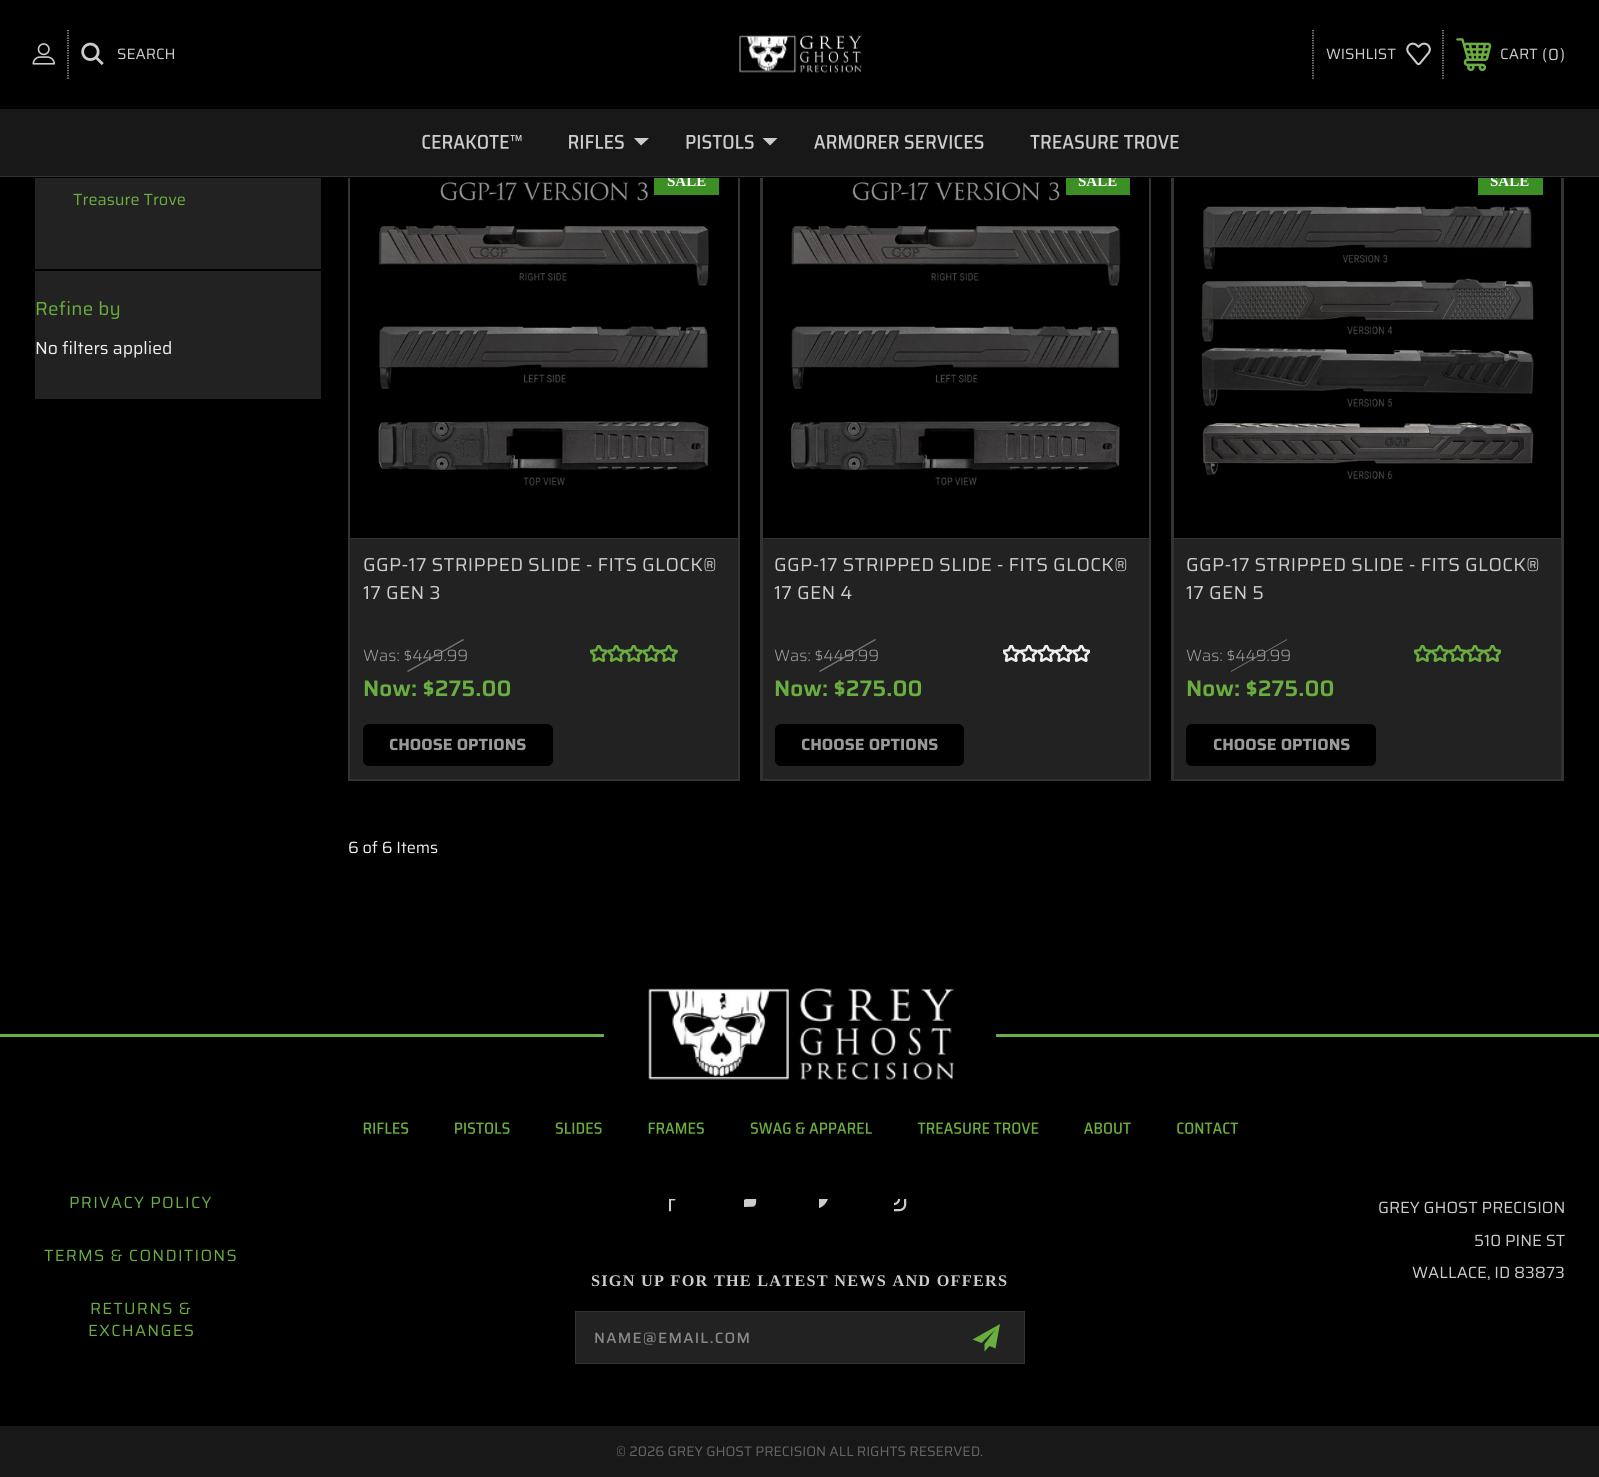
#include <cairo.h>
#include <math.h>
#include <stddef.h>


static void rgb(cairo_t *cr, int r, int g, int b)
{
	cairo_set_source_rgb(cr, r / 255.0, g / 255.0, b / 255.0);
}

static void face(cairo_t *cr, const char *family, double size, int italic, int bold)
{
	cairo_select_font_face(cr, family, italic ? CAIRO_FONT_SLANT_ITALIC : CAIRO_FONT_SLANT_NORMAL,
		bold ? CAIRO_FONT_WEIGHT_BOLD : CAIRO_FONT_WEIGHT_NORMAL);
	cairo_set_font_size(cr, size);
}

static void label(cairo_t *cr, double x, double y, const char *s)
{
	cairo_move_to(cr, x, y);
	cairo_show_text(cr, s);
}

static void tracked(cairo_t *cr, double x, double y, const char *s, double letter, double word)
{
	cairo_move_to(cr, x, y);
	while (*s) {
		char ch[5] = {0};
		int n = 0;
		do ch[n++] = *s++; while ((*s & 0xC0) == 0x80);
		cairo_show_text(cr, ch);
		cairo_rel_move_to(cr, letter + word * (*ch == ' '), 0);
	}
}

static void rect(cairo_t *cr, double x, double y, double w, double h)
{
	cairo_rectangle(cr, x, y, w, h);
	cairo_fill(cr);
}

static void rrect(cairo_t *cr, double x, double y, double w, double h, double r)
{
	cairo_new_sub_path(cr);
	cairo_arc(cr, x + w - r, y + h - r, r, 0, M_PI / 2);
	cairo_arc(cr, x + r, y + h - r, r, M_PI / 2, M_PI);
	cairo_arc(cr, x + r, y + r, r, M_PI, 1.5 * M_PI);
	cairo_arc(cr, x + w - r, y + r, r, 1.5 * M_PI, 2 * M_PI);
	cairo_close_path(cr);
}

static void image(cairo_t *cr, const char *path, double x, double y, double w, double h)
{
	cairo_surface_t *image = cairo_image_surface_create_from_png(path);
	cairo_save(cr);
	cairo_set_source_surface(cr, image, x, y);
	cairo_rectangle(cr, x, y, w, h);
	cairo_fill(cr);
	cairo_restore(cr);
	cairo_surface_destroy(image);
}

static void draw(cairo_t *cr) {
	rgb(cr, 0, 0, 0);
	cairo_paint(cr);
	cairo_rectangle(cr, 349.5, 149.5, 389, 630);
	rgb(cr, 51, 51, 51);
	cairo_set_line_width(cr, 3);
	cairo_stroke(cr);
	rgb(cr, 0, 0, 0);
	rect(cr, 350, 178, 388, 360);
	image(cr, "image10.png", 378, 180, 331, 306);
	rgb(cr, 59, 143, 36);
	rect(cr, 654, 178, 65, 17);
	face(cr, "Liberation Serif", 15, 0, 1);
	rgb(cr, 255, 255, 255);
	label(cr, 667, 186, "SALE");
	cairo_rectangle(cr, 761.5, 149.5, 388, 630);
	rgb(cr, 51, 51, 51);
	cairo_stroke(cr);
	image(cr, "image13.png", 790, 180, 331, 306);
	rgb(cr, 59, 143, 36);
	rect(cr, 1066, 178, 64, 17);
	rgb(cr, 255, 255, 255);
	label(cr, 1078, 186, "SALE");
	cairo_rectangle(cr, 1172.5, 149.5, 390, 630);
	rgb(cr, 51, 51, 51);
	cairo_stroke(cr);
	rgb(cr, 59, 143, 36);
	rect(cr, 1478, 178, 65, 17);
	rgb(cr, 255, 255, 255);
	label(cr, 1490, 186, "SALE");
	rgb(cr, 0, 0, 0);
	rect(cr, 348, 148, 1216, 30);
	rgb(cr, 51, 51, 51);
	rect(cr, 0, 176, 1599, 1);
	image(cr, "image0.png", 32, 43, 23, 22);
	cairo_new_path(cr);
	cairo_move_to(cr, 68, 30);
	cairo_line_to(cr, 68, 79);
	rgb(cr, 204, 204, 204);
	cairo_set_line_width(cr, 1.2);
	cairo_set_dash(cr, (double[]){1.25, 1.25}, 2, 0);
	cairo_stroke(cr);
	image(cr, "image1.png", 81, 42, 23, 24);
	face(cr, "Saira", 15, 0, 0);
	label(cr, 117, 59, "SEARCH");
	image(cr, "image2.png", 739, 35, 123, 38);
	cairo_new_path(cr);
	cairo_move_to(cr, 1443, 30);
	cairo_line_to(cr, 1443, 79);
	cairo_stroke(cr);
	cairo_new_path(cr);
	cairo_move_to(cr, 1313, 30);
	cairo_line_to(cr, 1313, 79);
	cairo_stroke(cr);
	label(cr, 1326, 59, "WISHLIST");
	image(cr, "image3.png", 1406, 42, 25, 24);
	image(cr, "image4.png", 1456, 38, 36, 34);
	label(cr, 1500, 59, "CART");
	face(cr, "Saira", 16.25, 0, 0);
	label(cr, 1542, 60, "(");
	label(cr, 1548, 60, "0");
	label(cr, 1560, 60, ")");
	rgb(cr, 24, 24, 24);
	rect(cr, 0, 109, 1599, 67);
	image(cr, "image5.png", 422, 134, 100, 15);
	image(cr, "image6.png", 569, 134, 55, 15);
	rgb(cr, 204, 204, 204);
	cairo_new_path(cr);
	cairo_move_to(cr, 634, 138);
	cairo_line_to(cr, 641, 145.5);
	cairo_line_to(cr, 649, 138);
	cairo_close_path(cr);
	cairo_fill(cr);
	image(cr, "image7.png", 686, 134, 68, 15);
	cairo_new_path(cr);
	cairo_move_to(cr, 762.5, 138);
	cairo_line_to(cr, 770, 145.5);
	cairo_line_to(cr, 777.5, 138);
	cairo_close_path(cr);
	cairo_fill(cr);
	image(cr, "image8.png", 814, 134, 170, 15);
	image(cr, "image9.png", 1030, 134, 149, 15);
	rgb(cr, 34, 34, 34);
	rect(cr, 35, 178, 286, 221);
	rgb(cr, 0, 0, 0);
	rect(cr, 35, 269, 286, 2);
	rgb(cr, 105, 174, 62);
	label(cr, 73, 205, "Treasure Trove");
	face(cr, "Saira", 18.75, 0, 0);
	tracked(cr, 35, 315, "Refine by", 0.3, 0);
	face(cr, "Saira", 17.5, 0, 0);
	rgb(cr, 238, 238, 238);
	label(cr, 35, 354, "No filters applied");
	rgb(cr, 34, 34, 34);
	rect(cr, 350, 539, 388, 240);
	rgb(cr, 51, 51, 51);
	rect(cr, 350, 538, 388, 1);
	face(cr, "Saira", 18.75, 0, 0);
	rgb(cr, 204, 204, 204);
	tracked(cr, 363, 571, "GGP-17 STRIPPED SLIDE - FITS GLOCK®", 0.3, 0);
	tracked(cr, 363, 599, "17 GEN 3", 0.3, 0);
	face(cr, "Saira Light", 16.25, 0, 0);
	rgb(cr, 153, 153, 153);
	label(cr, 363, 661, "Was: $449.99");
	cairo_set_source_rgba(cr, 0.6, 0.6, 0.6, 0.7);
	cairo_new_path(cr);
	cairo_move_to(cr, 407, 671);
	cairo_line_to(cr, 463, 639);
	cairo_line_to(cr, 464, 640);
	cairo_line_to(cr, 408, 672);
	cairo_close_path(cr);
	cairo_fill(cr);
	face(cr, "Saira SemiBold", 22.5, 0, 0);
	rgb(cr, 105, 174, 62);
	label(cr, 363, 696, "Now: $275.00");
	image(cr, "image11.png", 590, 645, 18, 17);
	image(cr, "image12.png", 608, 645, 17, 17);
	image(cr, "image11.png", 625, 645, 18, 17);
	image(cr, "image12.png", 643, 645, 17, 17);
	image(cr, "image11.png", 660, 645, 18, 17);
	rgb(cr, 0, 0, 0);
	rrect(cr, 363.5, 724.5, 189, 41, 5.5);
	cairo_fill_preserve(cr);
	cairo_set_line_width(cr, 1);
	cairo_set_dash(cr, NULL, 0, 0);
	cairo_stroke(cr);
	face(cr, "Saira", 16.25, 0, 1);
	rgb(cr, 153, 153, 153);
	label(cr, 389, 750, "CHOOSE OPTIONS");
	rgb(cr, 0, 0, 0);
	rect(cr, 1148, 178, 1, 360);
	rgb(cr, 34, 34, 34);
	rect(cr, 763, 539, 386, 240);
	rgb(cr, 51, 51, 51);
	rect(cr, 763, 538, 386, 1);
	face(cr, "Saira", 18.75, 0, 0);
	rgb(cr, 204, 204, 204);
	tracked(cr, 774, 571, "GGP-17 STRIPPED SLIDE - FITS GLOCK®", 0.3, 0);
	tracked(cr, 774, 599, "17 GEN 4", 0.3, 0);
	face(cr, "Saira Light", 16.25, 0, 0);
	rgb(cr, 153, 153, 153);
	label(cr, 774, 661, "Was: $449.99");
	cairo_set_source_rgba(cr, 0.6, 0.6, 0.6, 0.7);
	cairo_new_path(cr);
	cairo_move_to(cr, 819, 671);
	cairo_line_to(cr, 875, 639);
	cairo_line_to(cr, 876, 640);
	cairo_line_to(cr, 820, 672);
	cairo_close_path(cr);
	cairo_fill(cr);
	face(cr, "Saira SemiBold", 22.5, 0, 0);
	rgb(cr, 105, 174, 62);
	label(cr, 774, 696, "Now: $275.00");
	image(cr, "image14.png", 1003, 645, 17, 17);
	image(cr, "image15.png", 1020, 645, 18, 17);
	image(cr, "image14.png", 1038, 645, 17, 17);
	image(cr, "image15.png", 1055, 645, 18, 17);
	image(cr, "image14.png", 1073, 645, 17, 17);
	rgb(cr, 0, 0, 0);
	rrect(cr, 775.5, 724.5, 188, 41, 5.5);
	cairo_fill_preserve(cr);
	cairo_stroke(cr);
	face(cr, "Saira", 16.25, 0, 1);
	rgb(cr, 153, 153, 153);
	label(cr, 801, 750, "CHOOSE OPTIONS");
	image(cr, "image16.png", 1201, 206, 333, 273);
	rgb(cr, 34, 34, 34);
	rect(cr, 1174, 539, 387, 240);
	rgb(cr, 51, 51, 51);
	rect(cr, 1174, 538, 387, 1);
	face(cr, "Saira", 18.75, 0, 0);
	rgb(cr, 204, 204, 204);
	tracked(cr, 1186, 571, "GGP-17 STRIPPED SLIDE - FITS GLOCK®", 0.3, 0);
	tracked(cr, 1186, 599, "17 GEN 5", 0.3, 0);
	face(cr, "Saira Light", 16.25, 0, 0);
	rgb(cr, 153, 153, 153);
	label(cr, 1186, 661, "Was: $449.99");
	cairo_set_source_rgba(cr, 0.6, 0.6, 0.6, 0.7);
	cairo_new_path(cr);
	cairo_move_to(cr, 1231, 671);
	cairo_line_to(cr, 1287, 639);
	cairo_line_to(cr, 1287, 640);
	cairo_line_to(cr, 1231, 672);
	cairo_close_path(cr);
	cairo_fill(cr);
	face(cr, "Saira SemiBold", 22.5, 0, 0);
	rgb(cr, 105, 174, 62);
	label(cr, 1186, 696, "Now: $275.00");
	image(cr, "image17.png", 1414, 645, 17, 17);
	image(cr, "image18.png", 1431, 645, 18, 17);
	image(cr, "image17.png", 1449, 645, 17, 17);
	image(cr, "image18.png", 1466, 645, 18, 17);
	image(cr, "image17.png", 1484, 645, 17, 17);
	rgb(cr, 0, 0, 0);
	rrect(cr, 1186.5, 724.5, 189, 41, 5.5);
	cairo_fill_preserve(cr);
	cairo_stroke(cr);
	face(cr, "Saira", 16.25, 0, 1);
	rgb(cr, 153, 153, 153);
	label(cr, 1213, 750, "CHOOSE OPTIONS");
	face(cr, "Saira", 16.25, 0, 0);
	rgb(cr, 238, 238, 238);
	label(cr, 348, 853, "6 of 6 Items");
	rgb(cr, 105, 174, 62);
	rect(cr, 0, 1034, 1599, 3);
	rgb(cr, 0, 0, 0);
	rect(cr, 604, 1034, 392, 3);
	image(cr, "image19.png", 648, 988, 306, 92);
	image(cr, "image20.png", 363, 1122, 46, 12);
	image(cr, "image21.png", 455, 1122, 55, 12);
	image(cr, "image22.png", 555, 1122, 47, 12);
	image(cr, "image23.png", 648, 1122, 56, 12);
	image(cr, "image24.png", 750, 1122, 122, 12);
	image(cr, "image25.png", 917, 1122, 122, 12);
	image(cr, "image26.png", 1084, 1122, 47, 12);
	image(cr, "image27.png", 1177, 1122, 61, 12);
	rgb(cr, 105, 174, 62);
	tracked(cr, 69, 1208, "PRIVACY POLICY", 1.25, 0);
	tracked(cr, 44, 1261, "TERMS & CONDITIONS", 1.25, 0);
	tracked(cr, 90, 1314, "RETURNS &", 1.25, 0);
	tracked(cr, 88, 1336, "EXCHANGES", 1.25, 0);
	rgb(cr, 204, 204, 204);
	label(cr, 1378, 1213, "GREY GHOST PRECISION");
	label(cr, 1474, 1246, "510 PINE ST");
	label(cr, 1412, 1278, "WALLACE, ID 83873");
	image(cr, "image28.png", 669, 1199, 7, 13);
	image(cr, "image29.png", 744, 1199, 13, 8);
	image(cr, "image30.png", 819, 1199, 9, 9);
	image(cr, "image31.png", 894, 1199, 13, 13);
	face(cr, "Liberation Serif", 16.25, 0, 1);
	tracked(cr, 591, 1286, "SIGN UP FOR THE LATEST NEWS AND OFFERS", 1.25, 0);
	rgb(cr, 34, 34, 34);
	cairo_rectangle(cr, 575.5, 1311.5, 449, 52);
	cairo_fill_preserve(cr);
	rgb(cr, 51, 51, 51);
	cairo_stroke(cr);
	face(cr, "Saira Medium", 15, 0, 0);
	rgb(cr, 136, 136, 136);
	tracked(cr, 594, 1343, "NAME@EMAIL.COM", 1.25, 0);
	rgb(cr, 105, 174, 62);
	cairo_new_path(cr);
	cairo_move_to(cr, 1000, 1324);
	cairo_line_to(cr, 972.5, 1339.5);
	cairo_line_to(cr, 981.5, 1343);
	cairo_line_to(cr, 995, 1330);
	cairo_line_to(cr, 984.5, 1344);
	cairo_line_to(cr, 984.5, 1351.5);
	cairo_line_to(cr, 989.5, 1346);
	cairo_line_to(cr, 995.5, 1348.5);
	cairo_close_path(cr);
	cairo_fill(cr);
	rgb(cr, 24, 24, 24);
	rect(cr, 0, 1426, 1599, 51);
	face(cr, "Saira", 13.75, 0, 0);
	rgb(cr, 102, 102, 102);
	label(cr, 616, 1456, "© 2026 GREY GHOST PRECISION ALL RIGHTS RESERVED.");
}

int main(void) {
	cairo_surface_t *surface = cairo_image_surface_create(CAIRO_FORMAT_RGB24, 1599, 1477);
	cairo_t *cr = cairo_create(surface);
	cairo_font_options_t *options = cairo_font_options_create();
	cairo_font_options_set_hint_metrics(options, CAIRO_HINT_METRICS_OFF);
	cairo_font_options_set_hint_style(options, CAIRO_HINT_STYLE_NONE);
	cairo_set_font_options(cr, options);
	cairo_set_miter_limit(cr, 4);
	draw(cr);
	cairo_surface_write_to_png(surface, "render.png");
	cairo_font_options_destroy(options);
	cairo_destroy(cr);
	cairo_surface_destroy(surface);
	return 0;
}
